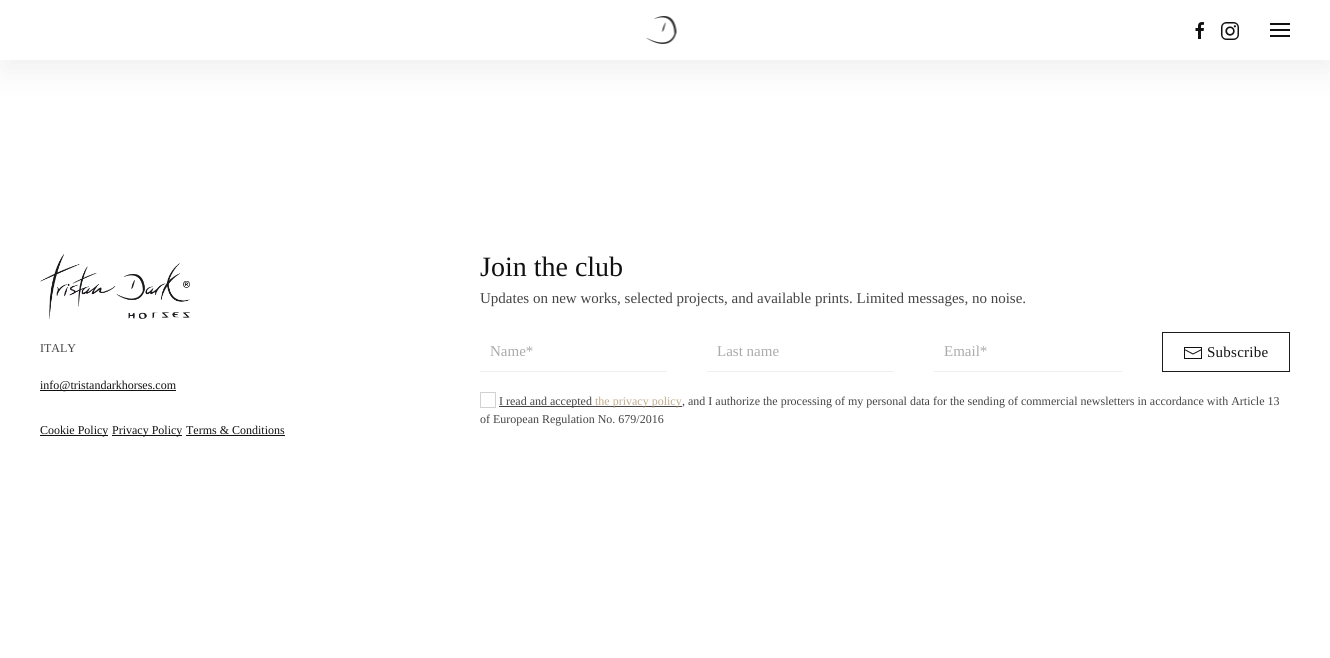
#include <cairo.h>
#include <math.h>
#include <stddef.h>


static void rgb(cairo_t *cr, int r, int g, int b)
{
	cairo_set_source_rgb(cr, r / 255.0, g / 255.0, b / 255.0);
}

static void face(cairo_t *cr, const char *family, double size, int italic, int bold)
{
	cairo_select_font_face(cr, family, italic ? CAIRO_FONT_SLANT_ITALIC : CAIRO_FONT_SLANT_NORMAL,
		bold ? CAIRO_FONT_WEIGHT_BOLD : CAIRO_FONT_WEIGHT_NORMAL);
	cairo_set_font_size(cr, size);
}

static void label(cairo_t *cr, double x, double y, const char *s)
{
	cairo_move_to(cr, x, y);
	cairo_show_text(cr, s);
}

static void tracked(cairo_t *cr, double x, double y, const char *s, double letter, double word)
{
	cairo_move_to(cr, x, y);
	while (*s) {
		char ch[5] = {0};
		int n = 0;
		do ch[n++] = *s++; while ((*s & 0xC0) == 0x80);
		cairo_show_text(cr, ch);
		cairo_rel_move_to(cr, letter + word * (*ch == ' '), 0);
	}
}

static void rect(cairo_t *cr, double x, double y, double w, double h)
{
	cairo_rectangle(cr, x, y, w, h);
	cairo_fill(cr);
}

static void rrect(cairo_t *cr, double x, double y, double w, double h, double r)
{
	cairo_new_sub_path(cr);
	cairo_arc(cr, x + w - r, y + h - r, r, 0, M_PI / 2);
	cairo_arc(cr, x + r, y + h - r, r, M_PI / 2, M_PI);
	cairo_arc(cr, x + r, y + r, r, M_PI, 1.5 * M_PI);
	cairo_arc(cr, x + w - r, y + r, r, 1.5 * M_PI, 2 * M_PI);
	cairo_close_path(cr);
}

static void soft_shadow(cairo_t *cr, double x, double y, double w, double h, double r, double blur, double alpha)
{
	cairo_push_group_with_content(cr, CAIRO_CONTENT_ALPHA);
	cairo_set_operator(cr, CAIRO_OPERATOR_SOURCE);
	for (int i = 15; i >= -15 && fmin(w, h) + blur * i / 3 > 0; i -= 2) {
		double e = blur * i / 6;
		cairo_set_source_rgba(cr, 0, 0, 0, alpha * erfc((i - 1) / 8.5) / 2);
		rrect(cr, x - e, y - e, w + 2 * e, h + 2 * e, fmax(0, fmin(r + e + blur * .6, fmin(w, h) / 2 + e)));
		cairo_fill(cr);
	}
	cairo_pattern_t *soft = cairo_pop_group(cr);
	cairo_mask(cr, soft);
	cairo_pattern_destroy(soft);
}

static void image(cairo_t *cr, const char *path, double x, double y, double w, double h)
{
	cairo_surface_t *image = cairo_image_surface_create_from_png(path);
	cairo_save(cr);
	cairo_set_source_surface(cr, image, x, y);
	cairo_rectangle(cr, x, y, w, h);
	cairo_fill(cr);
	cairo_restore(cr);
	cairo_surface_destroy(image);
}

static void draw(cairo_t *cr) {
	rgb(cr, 255, 255, 255);
	cairo_paint(cr);
	rgb(cr, 0, 0, 0);
	soft_shadow(cr, 2, 12, 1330, 60, 0, 16, 0.06);
	rgb(cr, 255, 255, 255);
	rect(cr, 0, 0, 1330, 60);
	image(cr, "image0.png", 646, 16, 31, 28);
	image(cr, "image1.png", 1195, 22, 9, 17);
	image(cr, "image2.png", 1221, 22, 18, 18);
	rgb(cr, 17, 17, 17);
	rect(cr, 1270, 23, 20, 2);
	rect(cr, 1270, 29, 20, 2);
	rect(cr, 1270, 35, 20, 2);
	image(cr, "image3.png", 40, 254, 150, 65);
	face(cr, "Liberation Serif", 12, 0, 0);
	rgb(cr, 68, 68, 68);
	label(cr, 40, 352, "ITALY");
	rgb(cr, 17, 17, 17);
	rect(cr, 40, 390, 136, 1);
	label(cr, 40, 389, "info@tristandarkhorses.com");
	rect(cr, 40, 435, 68, 1);
	label(cr, 40, 434, "Cookie Policy");
	rect(cr, 112, 435, 70, 1);
	label(cr, 112, 434, "Privacy Policy");
	label(cr, 186, 434, "Terms & Conditions");
	rect(cr, 186, 435, 99, 1);
	face(cr, "Liberation Serif", 28, 0, 0);
	label(cr, 480, 276, "Join the club");
	face(cr, "Liberation Serif", 15, 0, 0);
	rgb(cr, 68, 68, 68);
	label(cr, 480, 303, "Updates on new works, selected projects, and available prints. Limited messages, no noise.");
	rgb(cr, 240, 240, 240);
	rect(cr, 480, 371, 187, 1);
	rgb(cr, 170, 170, 170);
	label(cr, 490, 356, "Name*");
	rgb(cr, 240, 240, 240);
	rect(cr, 707, 371, 187, 1);
	rgb(cr, 170, 170, 170);
	label(cr, 717, 356, "Last name");
	rgb(cr, 240, 240, 240);
	rect(cr, 934, 371, 188, 1);
	rgb(cr, 170, 170, 170);
	label(cr, 944, 356, "Email*");
	cairo_rectangle(cr, 1162.5, 332.5, 127, 39);
	rgb(cr, 28, 28, 28);
	cairo_set_line_width(cr, 1);
	cairo_stroke(cr);
	image(cr, "image4.png", 1184, 347, 18, 12);
	rgb(cr, 17, 17, 17);
	tracked(cr, 1207, 357, "Subscribe", 0.25, 0);
	cairo_rectangle(cr, 480.5, 392.5, 15, 15);
	rgb(cr, 210, 210, 210);
	cairo_stroke(cr);
	rgb(cr, 68, 68, 68);
	rect(cr, 499, 406, 183, 1);
	face(cr, "Liberation Serif", 12, 0, 0);
	label(cr, 499, 405, "I read and accepted");
	rgb(cr, 194, 172, 141);
	label(cr, 595, 405, "the privacy policy");
	rgb(cr, 68, 68, 68);
	label(cr, 682, 405, ", and I authorize the processing of my personal data for the sending of commercial newsletters in accordance with Article 13");
	label(cr, 480, 423, "of European Regulation No. 679/2016");
}

int main(void) {
	cairo_surface_t *surface = cairo_image_surface_create(CAIRO_FORMAT_RGB24, 1330, 658);
	cairo_t *cr = cairo_create(surface);
	cairo_font_options_t *options = cairo_font_options_create();
	cairo_font_options_set_hint_metrics(options, CAIRO_HINT_METRICS_OFF);
	cairo_font_options_set_hint_style(options, CAIRO_HINT_STYLE_NONE);
	cairo_set_font_options(cr, options);
	cairo_set_miter_limit(cr, 4);
	draw(cr);
	cairo_surface_write_to_png(surface, "render.png");
	cairo_font_options_destroy(options);
	cairo_destroy(cr);
	cairo_surface_destroy(surface);
	return 0;
}
